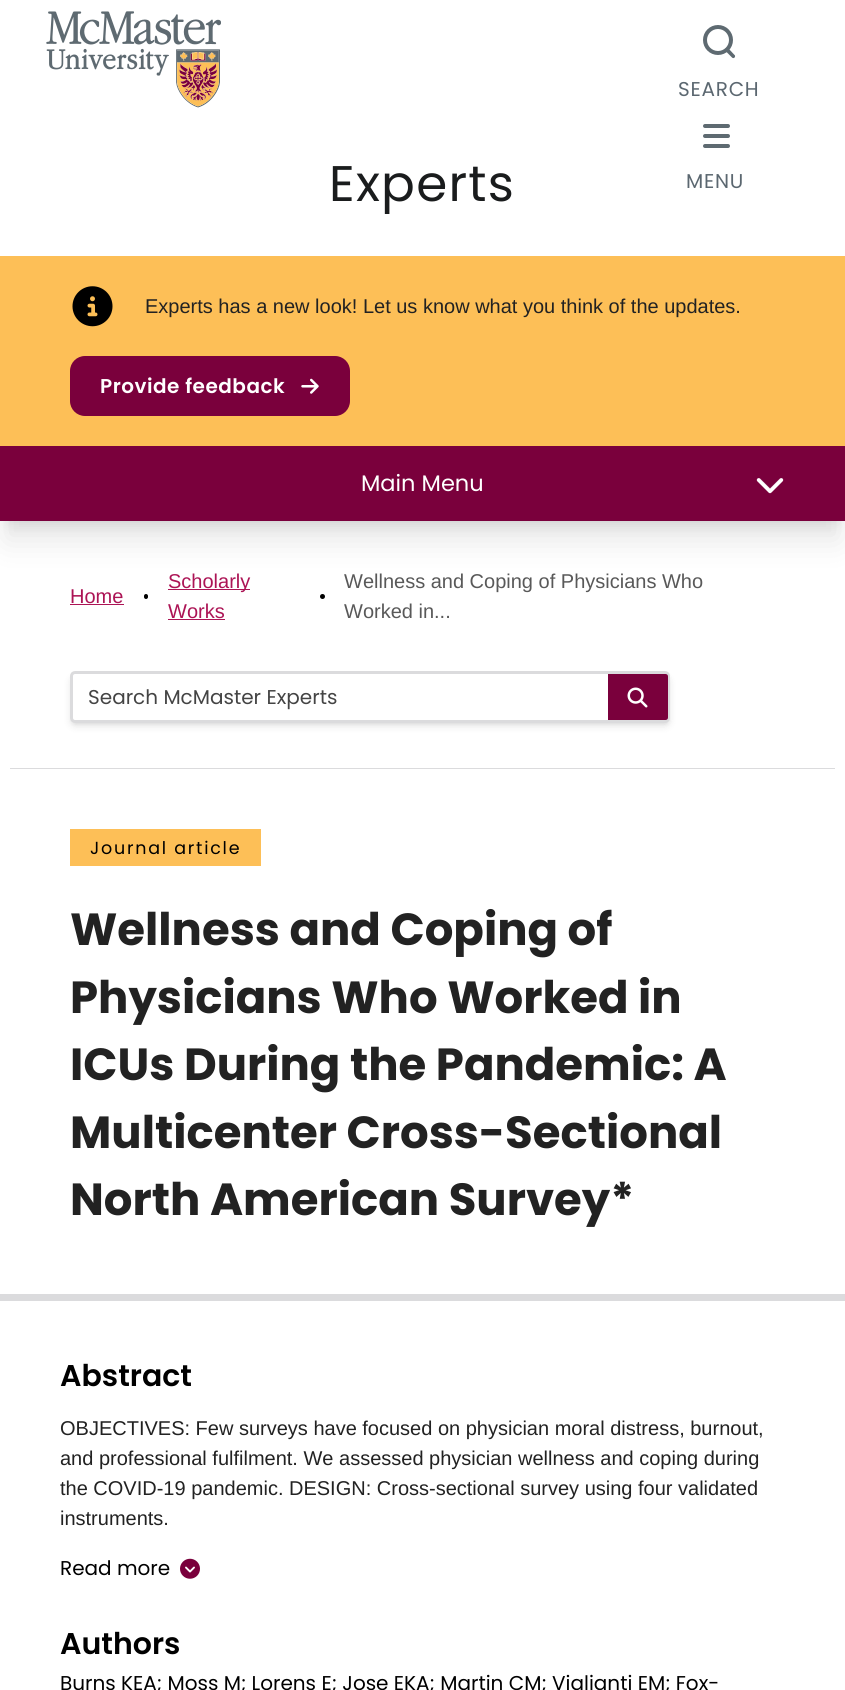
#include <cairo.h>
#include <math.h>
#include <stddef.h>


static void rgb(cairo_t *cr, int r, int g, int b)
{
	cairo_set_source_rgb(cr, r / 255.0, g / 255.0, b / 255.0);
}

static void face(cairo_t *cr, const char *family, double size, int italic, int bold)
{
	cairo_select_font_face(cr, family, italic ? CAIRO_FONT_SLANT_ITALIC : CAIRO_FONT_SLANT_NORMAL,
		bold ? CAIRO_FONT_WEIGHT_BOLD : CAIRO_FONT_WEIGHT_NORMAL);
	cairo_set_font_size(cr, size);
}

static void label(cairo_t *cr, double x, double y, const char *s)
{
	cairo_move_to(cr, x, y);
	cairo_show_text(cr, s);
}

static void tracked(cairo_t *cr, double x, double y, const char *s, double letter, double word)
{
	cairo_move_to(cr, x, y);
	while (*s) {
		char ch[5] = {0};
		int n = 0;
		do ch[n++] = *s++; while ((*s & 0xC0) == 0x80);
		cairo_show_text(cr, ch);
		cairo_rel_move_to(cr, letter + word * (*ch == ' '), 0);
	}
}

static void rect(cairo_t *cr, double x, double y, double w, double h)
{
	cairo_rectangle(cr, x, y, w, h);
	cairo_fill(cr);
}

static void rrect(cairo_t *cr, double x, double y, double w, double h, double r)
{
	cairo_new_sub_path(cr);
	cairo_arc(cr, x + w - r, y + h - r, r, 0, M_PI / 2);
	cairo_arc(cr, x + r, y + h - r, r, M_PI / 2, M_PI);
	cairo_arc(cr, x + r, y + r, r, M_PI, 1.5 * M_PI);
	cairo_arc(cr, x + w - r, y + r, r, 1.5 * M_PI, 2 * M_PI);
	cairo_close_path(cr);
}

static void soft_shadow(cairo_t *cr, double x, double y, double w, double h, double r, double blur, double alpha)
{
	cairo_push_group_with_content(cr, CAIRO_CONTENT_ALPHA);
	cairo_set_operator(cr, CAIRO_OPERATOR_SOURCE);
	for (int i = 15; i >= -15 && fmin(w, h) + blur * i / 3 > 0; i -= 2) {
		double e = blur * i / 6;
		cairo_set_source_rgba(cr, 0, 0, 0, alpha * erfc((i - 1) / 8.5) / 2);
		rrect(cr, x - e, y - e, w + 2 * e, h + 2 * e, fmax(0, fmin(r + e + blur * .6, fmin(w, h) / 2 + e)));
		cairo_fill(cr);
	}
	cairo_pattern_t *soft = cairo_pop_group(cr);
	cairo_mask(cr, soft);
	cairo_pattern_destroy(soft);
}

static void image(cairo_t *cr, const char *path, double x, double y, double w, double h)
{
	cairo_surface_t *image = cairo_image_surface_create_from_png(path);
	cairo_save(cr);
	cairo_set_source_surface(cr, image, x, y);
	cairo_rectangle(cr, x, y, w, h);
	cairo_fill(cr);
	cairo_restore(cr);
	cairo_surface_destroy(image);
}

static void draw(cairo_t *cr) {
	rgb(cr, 255, 255, 255);
	cairo_paint(cr);
	image(cr, "image0.png", 46, 11, 175, 97);
	face(cr, "Poppins", 50, 0, 0);
	rgb(cr, 26, 28, 29);
	tracked(cr, 329, 201, "Experts", 1.25, 0);
	cairo_new_path(cr);
	cairo_arc(cr, 718, 40, 13, 0, 2 * M_PI);
	rgb(cr, 94, 106, 113);
	cairo_set_line_width(cr, 4);
	cairo_stroke(cr);
	cairo_new_path(cr);
	cairo_move_to(cr, 728.5, 48.5);
	cairo_line_to(cr, 735, 55.5);
	cairo_curve_to(cr, 735.5, 57.5, 733.5, 59, 732, 57.5);
	cairo_line_to(cr, 725.5, 51);
	cairo_curve_to(cr, 724, 49, 727, 47, 728.5, 48.5);
	cairo_close_path(cr);
	cairo_fill(cr);
	face(cr, "Poppins", 20, 0, 0);
	rgb(cr, 91, 103, 112);
	tracked(cr, 678, 96, "SEARCH", 0.75, 0);
	rgb(cr, 94, 106, 113);
	rrect(cr, 703, 134, 27, 4, 2);
	cairo_fill(cr);
	rrect(cr, 703, 124, 27, 4, 2);
	cairo_fill(cr);
	rrect(cr, 703, 144, 27, 4, 2);
	cairo_fill(cr);
	rgb(cr, 91, 103, 112);
	tracked(cr, 686, 188, "MENU", 0.75, 0);
	rgb(cr, 253, 191, 87);
	rect(cr, 0, 256, 845, 190);
	image(cr, "image1.png", 72, 286, 41, 41);
	face(cr, "Liberation Sans", 20, 0, 0);
	rgb(cr, 34, 34, 34);
	label(cr, 145, 313, "Experts has a new look! Let us know what you think of the updates.");
	rgb(cr, 122, 0, 60);
	rrect(cr, 70, 356, 280, 60, 15);
	cairo_fill(cr);
	face(cr, "Poppins SemiBold", 20, 0, 0);
	rgb(cr, 255, 255, 255);
	tracked(cr, 100, 393, "Provide feedback", 0.5, 0);
	image(cr, "image2.png", 301, 378, 18, 16);
	rgb(cr, 0, 0, 0);
	soft_shadow(cr, 8, 464, 830, 60, 0, 6, 0.1);
	soft_shadow(cr, 6, 478, 833, 62, 0, 15.5, 0.1);
	rgb(cr, 122, 0, 60);
	rect(cr, 0, 446, 845, 75);
	face(cr, "Poppins", 22.5, 0, 0);
	rgb(cr, 255, 255, 255);
	label(cr, 361, 491, "Main Menu");
	image(cr, "image3.png", 756, 478, 28, 16);
	face(cr, "Liberation Sans", 20, 0, 0);
	rgb(cr, 172, 20, 85);
	label(cr, 70, 603, "Home");
	rect(cr, 70, 604, 54, 1);
	rgb(cr, 0, 0, 0);
	rrect(cr, 144, 594, 4, 5, 2);
	cairo_fill(cr);
	rgb(cr, 172, 20, 85);
	rect(cr, 168, 589, 82, 1);
	label(cr, 168, 588, "Scholarly");
	label(cr, 168, 618, "Works");
	rect(cr, 168, 619, 57, 1);
	rgb(cr, 0, 0, 0);
	cairo_new_path(cr);
	cairo_arc(cr, 322.5, 596.5, 2.5, 0, 2 * M_PI);
	cairo_fill(cr);
	rgb(cr, 89, 89, 89);
	label(cr, 344, 588, "Wellness and Coping of Physicians Who");
	label(cr, 344, 618, "Worked in...");
	rgb(cr, 0, 0, 0);
	soft_shadow(cr, 73, 676, 595, 47, 2.5, 2.5, 0.1);
	soft_shadow(cr, 71, 678, 598, 48, 4, 4, 0.1);
	rgb(cr, 255, 255, 255);
	rrect(cr, 71.5, 672.5, 597, 49, 3.5);
	cairo_fill_preserve(cr);
	rgb(cr, 219, 219, 221);
	cairo_set_line_width(cr, 3);
	cairo_stroke(cr);
	face(cr, "Poppins", 20, 0, 0);
	rgb(cr, 68, 68, 68);
	label(cr, 88, 704, "Search McMaster Experts");
	rgb(cr, 122, 0, 60);
	cairo_new_path(cr);
	cairo_move_to(cr, 608, 674);
	cairo_line_to(cr, 665.5, 674);
	cairo_curve_to(cr, 667, 674, 668, 675, 668, 676.5);
	cairo_line_to(cr, 668, 717.5);
	cairo_curve_to(cr, 668, 719, 667, 720, 665.5, 720);
	cairo_line_to(cr, 608, 720);
	cairo_close_path(cr);
	cairo_fill(cr);
	image(cr, "image4.png", 627, 687, 21, 21);
	rgb(cr, 219, 219, 221);
	rect(cr, 10, 768, 825, 1);
	rgb(cr, 253, 191, 87);
	rect(cr, 70, 829, 191, 37);
	face(cr, "Poppins", 17.5, 0, 0);
	rgb(cr, 0, 0, 0);
	tracked(cr, 90, 854, "Journal article", 1.75, 0);
	face(cr, "Poppins", 45, 0, 1);
	rgb(cr, 34, 34, 34);
	label(cr, 70, 945, "Wellness and Coping of");
	label(cr, 70, 1013, "Physicians Who Worked in");
	label(cr, 70, 1080, "ICUs During the Pandemic: A");
	label(cr, 70, 1148, "Multicenter Cross-Sectional");
	label(cr, 70, 1215, "North American Survey*");
	rgb(cr, 219, 219, 221);
	rect(cr, 0, 1294, 845, 7);
	face(cr, "Poppins SemiBold", 30, 0, 0);
	rgb(cr, 0, 0, 0);
	label(cr, 60, 1386, "Abstract");
	face(cr, "Liberation Sans", 20, 0, 0);
	rgb(cr, 34, 34, 34);
	label(cr, 60, 1435, "OBJECTIVES: Few surveys have focused on physician moral distress, burnout,");
	label(cr, 60, 1465, "and professional fulfilment. We assessed physician wellness and coping during");
	label(cr, 60, 1495, "the COVID-19 pandemic. DESIGN: Cross-sectional survey using four validated");
	label(cr, 60, 1525, "instruments.");
	face(cr, "Poppins", 20, 0, 0);
	rgb(cr, 0, 0, 0);
	label(cr, 60, 1575, "Read more");
	image(cr, "image5.png", 180, 1558, 20, 21);
	face(cr, "Poppins SemiBold", 30, 0, 0);
	label(cr, 60, 1654, "Authors");
	face(cr, "Poppins", 20, 0, 0);
	label(cr, 60, 1690, "Burns KEA; Moss M; Lorens E; Jose EKA; Martin CM; Viglianti EM; Fox-");
}

int main(void) {
	cairo_surface_t *surface = cairo_image_surface_create(CAIRO_FORMAT_RGB24, 845, 1690);
	cairo_t *cr = cairo_create(surface);
	cairo_font_options_t *options = cairo_font_options_create();
	cairo_font_options_set_hint_metrics(options, CAIRO_HINT_METRICS_OFF);
	cairo_font_options_set_hint_style(options, CAIRO_HINT_STYLE_NONE);
	cairo_set_font_options(cr, options);
	cairo_set_miter_limit(cr, 4);
	draw(cr);
	cairo_surface_write_to_png(surface, "render.png");
	cairo_font_options_destroy(options);
	cairo_destroy(cr);
	cairo_surface_destroy(surface);
	return 0;
}
